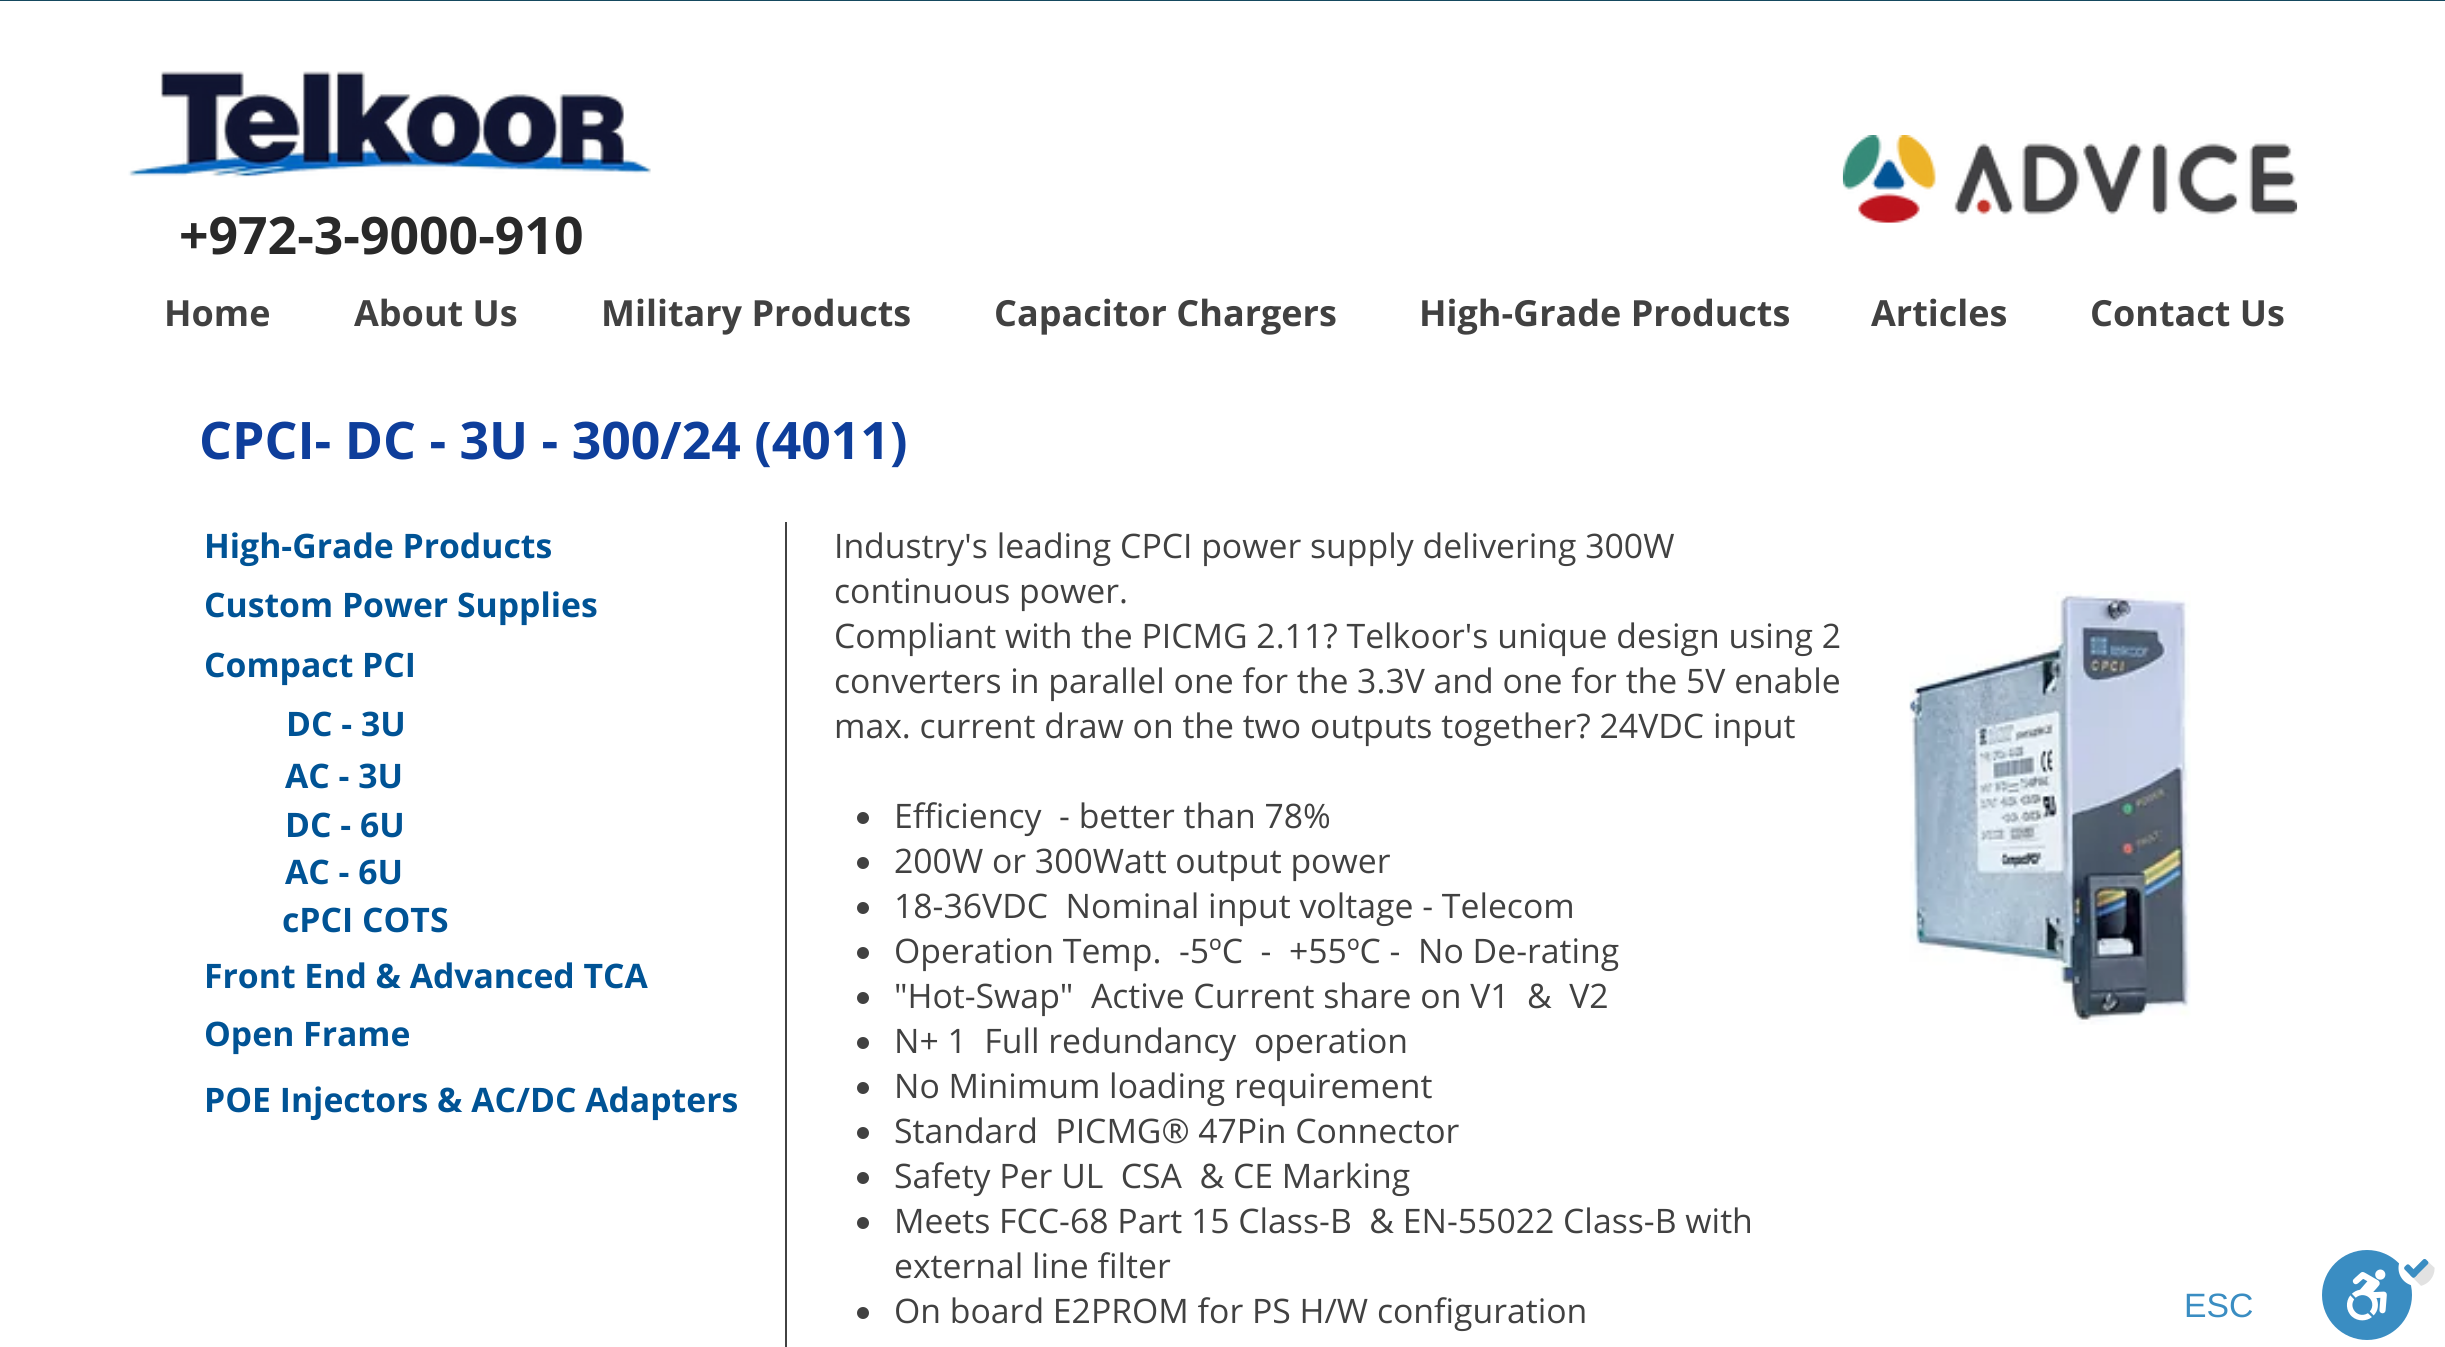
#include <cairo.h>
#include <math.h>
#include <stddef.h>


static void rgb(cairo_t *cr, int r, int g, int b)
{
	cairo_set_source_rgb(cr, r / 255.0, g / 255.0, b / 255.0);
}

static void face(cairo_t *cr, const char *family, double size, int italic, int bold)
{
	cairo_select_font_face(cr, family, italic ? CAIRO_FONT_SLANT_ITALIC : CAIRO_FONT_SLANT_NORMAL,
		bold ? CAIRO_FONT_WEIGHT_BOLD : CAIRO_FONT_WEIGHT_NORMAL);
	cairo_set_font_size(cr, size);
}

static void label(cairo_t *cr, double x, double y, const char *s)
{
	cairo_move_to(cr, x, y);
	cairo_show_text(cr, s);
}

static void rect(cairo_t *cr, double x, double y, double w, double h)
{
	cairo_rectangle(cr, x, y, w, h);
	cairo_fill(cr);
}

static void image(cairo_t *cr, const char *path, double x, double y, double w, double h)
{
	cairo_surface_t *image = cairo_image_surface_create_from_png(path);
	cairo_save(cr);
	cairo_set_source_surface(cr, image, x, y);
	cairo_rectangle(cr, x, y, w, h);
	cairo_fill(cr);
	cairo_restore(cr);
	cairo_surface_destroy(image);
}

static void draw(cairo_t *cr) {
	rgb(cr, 255, 255, 255);
	cairo_paint(cr);
	image(cr, "image0.png", 128, 71, 523, 107);
	image(cr, "image1.png", 1842, 135, 456, 88);
	face(cr, "Open Sans", 51.75, 0, 1);
	rgb(cr, 41, 41, 41);
	label(cr, 179, 254, "+972-3-9000-910");
	face(cr, "Open Sans", 36, 0, 1);
	rgb(cr, 65, 65, 65);
	label(cr, 164, 326, "Home");
	label(cr, 354, 326, "About Us");
	label(cr, 601, 326, "Military Products");
	label(cr, 994, 326, "Capacitor Chargers");
	label(cr, 1419, 326, "High-Grade Products");
	label(cr, 1871, 326, "Articles");
	label(cr, 2090, 326, "Contact Us");
	face(cr, "Open Sans", 51.75, 0, 1);
	rgb(cr, 14, 62, 155);
	label(cr, 199, 459, "CPCI- DC - 3U - 300/24 (4011)");
	face(cr, "Open Sans", 33.75, 0, 1);
	rgb(cr, 0, 83, 149);
	label(cr, 204, 558, "High-Grade Products");
	rgb(cr, 66, 66, 66);
	rect(cr, 785, 522, 2, 825);
	face(cr, "Open Sans", 33.75, 0, 0);
	rgb(cr, 65, 65, 65);
	label(cr, 834, 558, "Industry's leading CPCI power supply delivering 300W");
	label(cr, 834, 603, "continuous power.");
	label(cr, 834, 648, "Compliant with the PICMG 2.11? Telkoor's unique design using 2");
	label(cr, 834, 693, "converters in parallel one for the 3.3V and one for the 5V enable");
	label(cr, 834, 738, "max. current draw on the two outputs together? 24VDC input");
	cairo_new_path(cr);
	cairo_arc(cr, 863, 818, 6, 0, 2 * M_PI);
	cairo_fill(cr);
	label(cr, 894, 828, "Efficiency  - better than 78%");
	cairo_new_path(cr);
	cairo_arc(cr, 863, 863, 6, 0, 2 * M_PI);
	cairo_fill(cr);
	label(cr, 894, 873, "200W or 300Watt output power");
	cairo_new_path(cr);
	cairo_arc(cr, 863, 908, 6, 0, 2 * M_PI);
	cairo_fill(cr);
	label(cr, 894, 918, "18-36VDC  Nominal input voltage - Telecom");
	cairo_new_path(cr);
	cairo_arc(cr, 863, 953, 6, 0, 2 * M_PI);
	cairo_fill(cr);
	label(cr, 894, 963, "Operation Temp.  -5ºC  -  +55ºC -  No De-rating");
	cairo_new_path(cr);
	cairo_arc(cr, 863, 998, 6, 0, 2 * M_PI);
	cairo_fill(cr);
	label(cr, 894, 1008, "\"Hot-Swap\"  Active Current share on V1  &  V2");
	cairo_new_path(cr);
	cairo_arc(cr, 863, 1043, 6, 0, 2 * M_PI);
	cairo_fill(cr);
	label(cr, 894, 1053, "N+ 1  Full redundancy  operation");
	cairo_new_path(cr);
	cairo_arc(cr, 863, 1088, 6, 0, 2 * M_PI);
	cairo_fill(cr);
	label(cr, 894, 1098, "No Minimum loading requirement");
	cairo_new_path(cr);
	cairo_arc(cr, 863, 1133, 6, 0, 2 * M_PI);
	cairo_fill(cr);
	label(cr, 894, 1143, "Standard  PICMG® 47Pin Connector");
	cairo_new_path(cr);
	cairo_arc(cr, 863, 1178, 6, 0, 2 * M_PI);
	cairo_fill(cr);
	label(cr, 894, 1188, "Safety Per UL  CSA  & CE Marking");
	cairo_new_path(cr);
	cairo_arc(cr, 863, 1223, 6, 0, 2 * M_PI);
	cairo_fill(cr);
	label(cr, 894, 1233, "Meets FCC-68 Part 15 Class-B  & EN-55022 Class-B with");
	label(cr, 894, 1278, "external line filter");
	cairo_new_path(cr);
	cairo_arc(cr, 863, 1313, 6, 0, 2 * M_PI);
	cairo_fill(cr);
	label(cr, 894, 1323, "On board E2PROM for PS H/W configuration");
	face(cr, "Open Sans", 33.75, 0, 1);
	rgb(cr, 0, 83, 149);
	label(cr, 204, 617, "Custom Power Supplies");
	image(cr, "image2.png", 1909, 591, 282, 434);
	label(cr, 204, 677, "Compact PCI");
	label(cr, 286, 736, "DC - 3U");
	label(cr, 285, 788, "AC - 3U");
	label(cr, 285, 837, "DC - 6U");
	label(cr, 285, 884, "AC - 6U");
	label(cr, 282, 932, "cPCI COTS");
	label(cr, 204, 988, "Front End & Advanced TCA");
	label(cr, 204, 1046, "Open Frame");
	label(cr, 204, 1112, "POE Injectors & AC/DC Adapters");
	rgb(cr, 21, 73, 95);
	rect(cr, 0, 0, 2445, 1);
	face(cr, "Liberation Sans", 33.75, 0, 0);
	rgb(cr, 58, 141, 194);
	label(cr, 2184, 1317, "ESC");
	image(cr, "image3.png", 2322, 1250, 113, 90);
}

int main(void) {
	cairo_surface_t *surface = cairo_image_surface_create(CAIRO_FORMAT_RGB24, 2445, 1347);
	cairo_t *cr = cairo_create(surface);
	cairo_font_options_t *options = cairo_font_options_create();
	cairo_font_options_set_hint_metrics(options, CAIRO_HINT_METRICS_OFF);
	cairo_font_options_set_hint_style(options, CAIRO_HINT_STYLE_NONE);
	cairo_set_font_options(cr, options);
	cairo_set_miter_limit(cr, 4);
	draw(cr);
	cairo_surface_write_to_png(surface, "render.png");
	cairo_font_options_destroy(options);
	cairo_destroy(cr);
	cairo_surface_destroy(surface);
	return 0;
}
